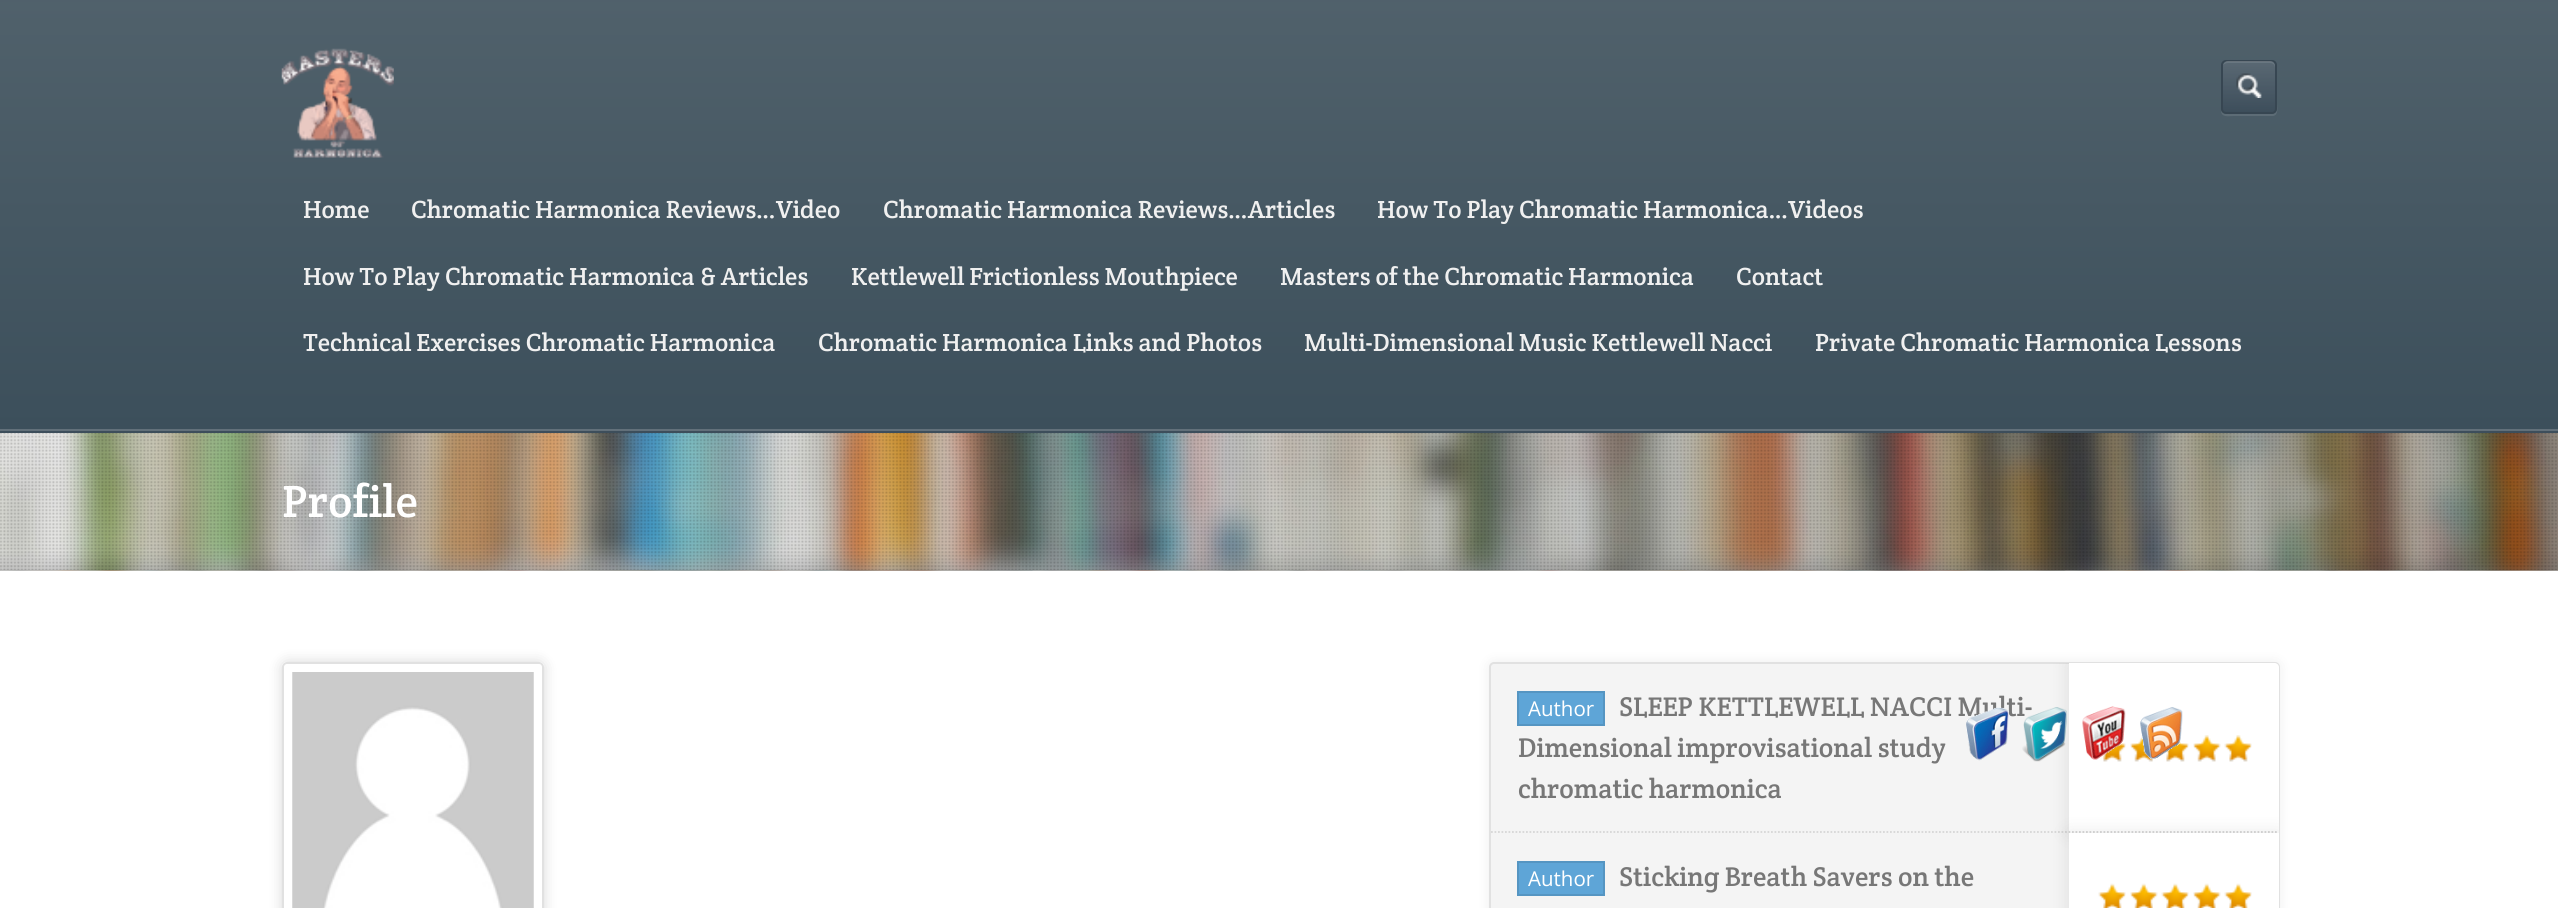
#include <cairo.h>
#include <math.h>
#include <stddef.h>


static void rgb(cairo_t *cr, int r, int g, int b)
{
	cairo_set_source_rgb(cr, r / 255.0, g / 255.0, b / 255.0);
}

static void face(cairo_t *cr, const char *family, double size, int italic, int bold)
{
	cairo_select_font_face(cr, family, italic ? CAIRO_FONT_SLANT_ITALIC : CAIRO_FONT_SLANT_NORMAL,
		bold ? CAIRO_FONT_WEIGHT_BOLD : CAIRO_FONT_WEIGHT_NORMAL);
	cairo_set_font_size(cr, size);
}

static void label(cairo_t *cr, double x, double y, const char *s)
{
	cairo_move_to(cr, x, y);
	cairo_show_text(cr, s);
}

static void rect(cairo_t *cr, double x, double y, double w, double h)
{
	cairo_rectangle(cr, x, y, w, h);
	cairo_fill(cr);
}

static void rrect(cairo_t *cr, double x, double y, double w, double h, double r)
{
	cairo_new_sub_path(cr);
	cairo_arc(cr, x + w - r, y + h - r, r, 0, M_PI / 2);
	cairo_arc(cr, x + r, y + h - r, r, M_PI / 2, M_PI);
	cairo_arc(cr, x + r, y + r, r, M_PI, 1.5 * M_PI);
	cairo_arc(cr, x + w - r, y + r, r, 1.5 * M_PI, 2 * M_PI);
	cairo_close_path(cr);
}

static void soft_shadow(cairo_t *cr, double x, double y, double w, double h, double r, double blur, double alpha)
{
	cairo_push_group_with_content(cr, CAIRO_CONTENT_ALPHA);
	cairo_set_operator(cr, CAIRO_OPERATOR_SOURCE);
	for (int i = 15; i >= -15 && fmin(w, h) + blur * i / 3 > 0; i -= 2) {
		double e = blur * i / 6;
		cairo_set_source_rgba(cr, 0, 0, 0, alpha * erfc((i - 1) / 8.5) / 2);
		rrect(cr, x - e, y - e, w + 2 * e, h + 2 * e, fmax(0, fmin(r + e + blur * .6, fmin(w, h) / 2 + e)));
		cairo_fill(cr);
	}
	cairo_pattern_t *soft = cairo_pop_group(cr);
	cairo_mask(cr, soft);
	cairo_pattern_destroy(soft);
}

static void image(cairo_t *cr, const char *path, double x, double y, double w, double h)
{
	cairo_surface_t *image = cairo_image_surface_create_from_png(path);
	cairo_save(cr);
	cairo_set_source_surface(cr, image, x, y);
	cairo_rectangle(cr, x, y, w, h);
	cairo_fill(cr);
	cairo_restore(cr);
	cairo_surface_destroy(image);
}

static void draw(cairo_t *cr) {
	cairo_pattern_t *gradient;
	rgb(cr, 255, 255, 255);
	cairo_paint(cr);
	gradient = cairo_pattern_create_linear(1279, 1.7, 1279, 429);
	cairo_pattern_add_color_stop_rgba(gradient, 0, 0.314, 0.38, 0.42, 1);
	cairo_pattern_add_color_stop_rgba(gradient, 1, 0.235, 0.31, 0.357, 1);
	cairo_set_source(cr, gradient);
	cairo_pattern_destroy(gradient);
	rect(cr, 0, 2, 2558, 427);
	rgb(cr, 80, 96, 107);
	rect(cr, 0, 0, 2558, 2);
	rgb(cr, 98, 112, 122);
	rect(cr, 0, 429, 2558, 2);
	image(cr, "image0.png", 281, 48, 113, 110);
	rgb(cr, 93, 108, 118);
	cairo_new_path(cr);
	cairo_move_to(cr, 2221, 110);
	cairo_curve_to(cr, 2221, 118, 2228, 116, 2234, 116);
	cairo_line_to(cr, 2273, 116);
	cairo_curve_to(cr, 2279, 115, 2277, 107, 2277, 104);
	cairo_line_to(cr, 2277, 64);
	cairo_line_to(cr, 2277, 101);
	cairo_curve_to(cr, 2277, 114, 2277, 114, 2264, 114);
	cairo_line_to(cr, 2234, 114);
	cairo_curve_to(cr, 2230, 114, 2223, 115, 2221, 110);
	cairo_close_path(cr);
	cairo_fill(cr);
	rgb(cr, 61, 78, 91);
	rrect(cr, 2221, 60, 56, 54, 5);
	cairo_fill(cr);
	image(cr, "image1.png", 2236, 73, 26, 25);
	rrect(cr, 2222, 61, 54, 52, 4);
	cairo_set_source_rgba(cr, 0, 0, 0, 0.1);
	cairo_stroke(cr);
	gradient = cairo_pattern_create_linear(2249, 61, 2249, 112);
	cairo_pattern_add_color_stop_rgba(gradient, 0, 1, 1, 1, 0.15);
	cairo_pattern_add_color_stop_rgba(gradient, 1, 1, 1, 1, 0);
	cairo_set_source(cr, gradient);
	cairo_pattern_destroy(gradient);
	rrect(cr, 2223, 61, 52, 51, 5);
	cairo_fill(cr);
	cairo_set_source_rgba(cr, 1, 1, 1, 0.1);
	cairo_new_path(cr);
	cairo_move_to(cr, 2228, 63);
	cairo_line_to(cr, 2270, 63);
	cairo_curve_to(cr, 2273, 63, 2275, 65, 2275, 68);
	cairo_line_to(cr, 2275, 66);
	cairo_curve_to(cr, 2275, 63, 2273, 61, 2270, 61);
	cairo_line_to(cr, 2228, 61);
	cairo_curve_to(cr, 2226, 61, 2223, 63, 2223, 65);
	cairo_curve_to(cr, 2224, 64, 2226, 63, 2228, 63);
	cairo_close_path(cr);
	cairo_fill(cr);
	face(cr, "Crete Round", 25, 0, 0);
	rgb(cr, 240, 240, 240);
	label(cr, 303, 218, "Home");
	label(cr, 411, 218, "Chromatic Harmonica Reviews…Video");
	label(cr, 883, 218, "Chromatic Harmonica Reviews…Articles");
	label(cr, 1377, 218, "How To Play Chromatic Harmonica…Videos");
	label(cr, 303, 285, "How To Play Chromatic Harmonica & Articles");
	label(cr, 851, 285, "Kettlewell Frictionless Mouthpiece");
	label(cr, 1280, 285, "Masters of the Chromatic Harmonica");
	label(cr, 1736, 285, "Contact");
	label(cr, 303, 351, "Technical Exercises Chromatic Harmonica");
	label(cr, 818, 351, "Chromatic Harmonica Links and Photos");
	label(cr, 1304, 351, "Multi-Dimensional Music Kettlewell Nacci");
	label(cr, 1815, 351, "Private Chromatic Harmonica Lessons");
	rgb(cr, 61, 78, 91);
	rect(cr, 0, 431, 2558, 2);
	image(cr, "image2.png", 0, 570, 2558, 1);
	image(cr, "image3.png", 0, 433, 2558, 138);
	image(cr, "image4.png", 0, 433, 2557, 137);
	face(cr, "Crete Round", 45.5, 0, 0);
	rgb(cr, 255, 255, 255);
	label(cr, 282, 517, "Profile");
	cairo_save(cr);
	cairo_rectangle(cr, 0, 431, 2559, 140);
	cairo_clip(cr);
	rgb(cr, 0, 0, 0);
	soft_shadow(cr, 0, 571, 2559, 8, 0, 13, 0.3);
	cairo_restore(cr);
	cairo_save(cr);
	cairo_set_fill_rule(cr, CAIRO_FILL_RULE_EVEN_ODD);
	cairo_new_path(cr);
	cairo_move_to(cr, 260, 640);
	cairo_line_to(cr, 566, 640);
	cairo_line_to(cr, 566, 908);
	cairo_line_to(cr, 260, 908);
	cairo_close_path(cr);
	cairo_move_to(cr, 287, 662);
	cairo_line_to(cr, 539, 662);
	cairo_curve_to(cr, 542, 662, 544, 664, 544, 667);
	cairo_line_to(cr, 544, 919);
	cairo_curve_to(cr, 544, 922, 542, 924, 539, 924);
	cairo_line_to(cr, 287, 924);
	cairo_curve_to(cr, 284, 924, 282, 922, 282, 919);
	cairo_line_to(cr, 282, 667);
	cairo_curve_to(cr, 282, 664, 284, 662, 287, 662);
	cairo_close_path(cr);
	cairo_clip(cr);
	rgb(cr, 0, 0, 0);
	soft_shadow(cr, 282, 662, 262, 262, 5, 7, 0.15);
	cairo_restore(cr);
	rrect(cr, 283, 663, 260, 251, 4);
	rgb(cr, 225, 225, 225);
	cairo_stroke(cr);
	image(cr, "image5.png", 292, 672, 242, 236);
	rgb(cr, 0, 0, 0);
	soft_shadow(cr, 1489, 662, 791, 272, 5, 7, 0.07);
	rgb(cr, 244, 244, 244);
	rrect(cr, 1490, 663, 789, 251, 4);
	cairo_fill_preserve(cr);
	rgb(cr, 225, 225, 225);
	cairo_stroke(cr);
	cairo_new_path(cr);
	cairo_move_to(cr, 1491, 832);
	cairo_line_to(cr, 2068.5, 832);
	rgb(cr, 214, 214, 214);
	cairo_set_line_width(cr, 1.8);
	cairo_set_dash(cr, (double[]){1.75, 1.75}, 2, 0);
	cairo_stroke(cr);
	rgb(cr, 94, 165, 215);
	cairo_rectangle(cr, 1518, 692, 86, 33);
	cairo_fill_preserve(cr);
	rgb(cr, 85, 149, 194);
	cairo_set_line_width(cr, 2);
	cairo_set_dash(cr, NULL, 0, 0);
	cairo_stroke(cr);
	face(cr, "Open Sans", 20.5, 0, 0);
	rgb(cr, 255, 255, 255);
	label(cr, 1528, 716, "Author");
	face(cr, "Crete Round", 27.25, 0, 0);
	rgb(cr, 119, 119, 119);
	label(cr, 1619, 716, "SLEEP KETTLEWELL NACCI Multi-");
	label(cr, 1518, 757, "Dimensional improvisational study");
	label(cr, 1518, 798, "chromatic harmonica");
	cairo_save(cr);
	rrect(cr, 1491, 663, 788, 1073, 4);
	cairo_clip(cr);
	rgb(cr, 0, 0, 0);
	soft_shadow(cr, 2069, 663, 210, 170, 0, 9, 0.1);
	cairo_restore(cr);
	rgb(cr, 255, 255, 255);
	cairo_new_path(cr);
	cairo_move_to(cr, 2069, 663);
	cairo_line_to(cr, 2275, 663);
	cairo_curve_to(cr, 2277, 663, 2279, 665, 2279, 667);
	cairo_line_to(cr, 2279, 833);
	cairo_line_to(cr, 2069, 833);
	cairo_close_path(cr);
	cairo_fill(cr);
	cairo_new_path(cr);
	cairo_move_to(cr, 2068.5, 832);
	cairo_line_to(cr, 2278.5, 832);
	rgb(cr, 214, 214, 214);
	cairo_set_line_width(cr, 1.8);
	cairo_set_dash(cr, (double[]){1.75, 1.75}, 2, 0);
	cairo_stroke(cr);
	image(cr, "image6.png", 2103, 743, 23, 19);
	image(cr, "image7.png", 2130, 735, 23, 27);
	image(cr, "image8.png", 2166, 741, 23, 21);
	image(cr, "image9.png", 2193, 735, 28, 27);
	image(cr, "image10.png", 2224, 735, 28, 27);
	rgb(cr, 94, 165, 215);
	cairo_rectangle(cr, 1518, 862, 86, 33);
	cairo_fill_preserve(cr);
	rgb(cr, 85, 149, 194);
	cairo_set_line_width(cr, 2);
	cairo_set_dash(cr, NULL, 0, 0);
	cairo_stroke(cr);
	face(cr, "Open Sans", 20.5, 0, 0);
	rgb(cr, 255, 255, 255);
	label(cr, 1528, 886, "Author");
	face(cr, "Crete Round", 27.25, 0, 0);
	rgb(cr, 119, 119, 119);
	label(cr, 1619, 886, "Sticking Breath Savers on the");
	cairo_save(cr);
	rrect(cr, 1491, 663, 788, 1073, 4);
	cairo_clip(cr);
	rgb(cr, 0, 0, 0);
	soft_shadow(cr, 2069, 833, 210, 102, 0, 9, 0.1);
	cairo_restore(cr);
	rgb(cr, 255, 255, 255);
	rect(cr, 2069, 833, 210, 75);
	image(cr, "image11.png", 2098, 883, 28, 25);
	image(cr, "image12.png", 2130, 883, 28, 25);
	image(cr, "image11.png", 2161, 883, 28, 25);
	image(cr, "image13.png", 2193, 883, 28, 25);
	image(cr, "image11.png", 2224, 883, 28, 25);
	image(cr, "image14.png", 1966, 707, 43, 54);
	image(cr, "image15.png", 2022, 707, 45, 55);
	image(cr, "image16.png", 2082, 706, 44, 54);
	image(cr, "image17.png", 2140, 707, 43, 52);
}

int main(void) {
	cairo_surface_t *surface = cairo_image_surface_create(CAIRO_FORMAT_RGB24, 2558, 908);
	cairo_t *cr = cairo_create(surface);
	cairo_font_options_t *options = cairo_font_options_create();
	cairo_font_options_set_hint_metrics(options, CAIRO_HINT_METRICS_OFF);
	cairo_font_options_set_hint_style(options, CAIRO_HINT_STYLE_NONE);
	cairo_set_font_options(cr, options);
	cairo_set_miter_limit(cr, 4);
	draw(cr);
	cairo_surface_write_to_png(surface, "render.png");
	cairo_font_options_destroy(options);
	cairo_destroy(cr);
	cairo_surface_destroy(surface);
	return 0;
}
